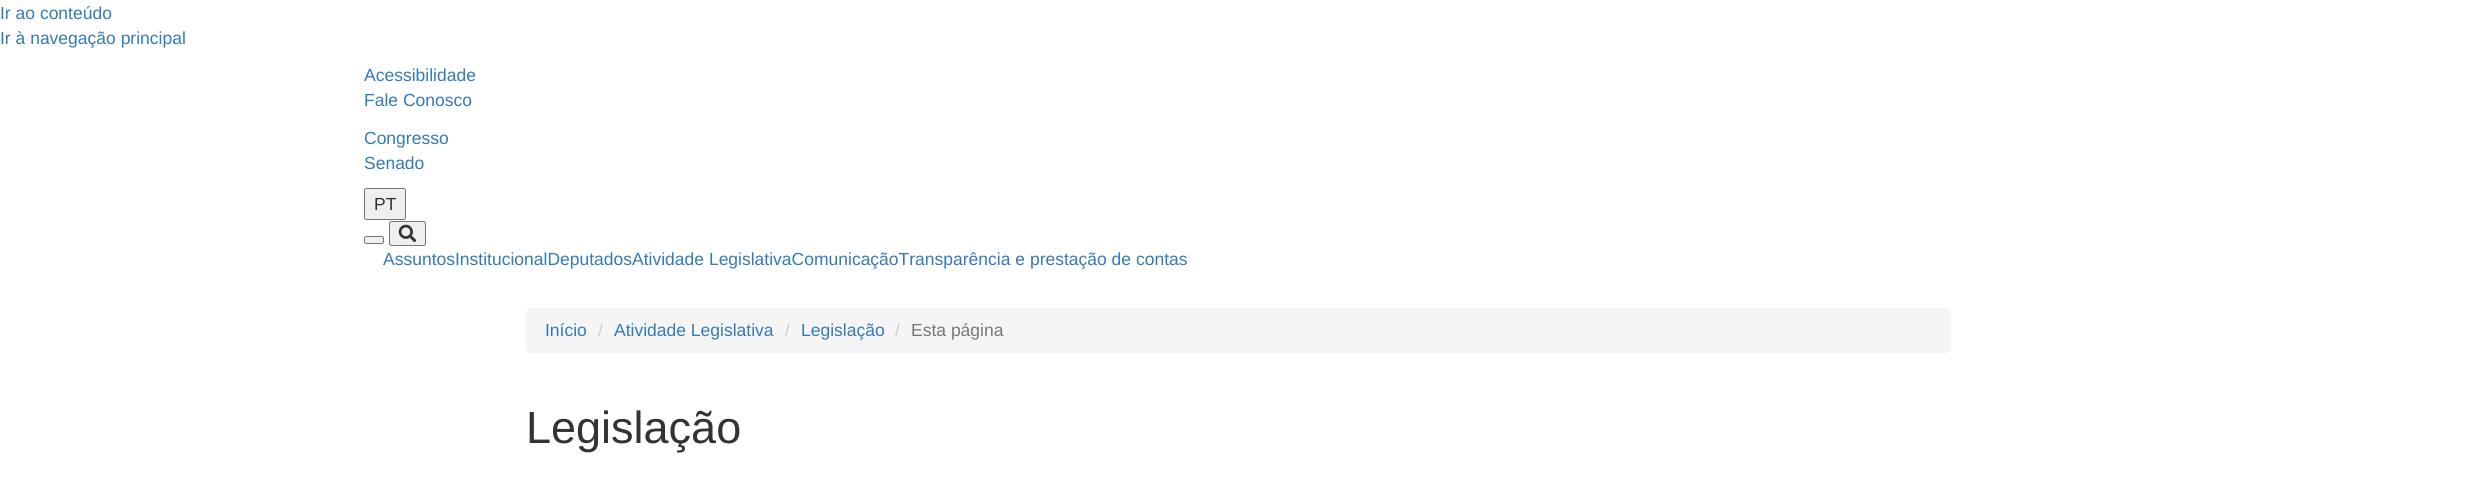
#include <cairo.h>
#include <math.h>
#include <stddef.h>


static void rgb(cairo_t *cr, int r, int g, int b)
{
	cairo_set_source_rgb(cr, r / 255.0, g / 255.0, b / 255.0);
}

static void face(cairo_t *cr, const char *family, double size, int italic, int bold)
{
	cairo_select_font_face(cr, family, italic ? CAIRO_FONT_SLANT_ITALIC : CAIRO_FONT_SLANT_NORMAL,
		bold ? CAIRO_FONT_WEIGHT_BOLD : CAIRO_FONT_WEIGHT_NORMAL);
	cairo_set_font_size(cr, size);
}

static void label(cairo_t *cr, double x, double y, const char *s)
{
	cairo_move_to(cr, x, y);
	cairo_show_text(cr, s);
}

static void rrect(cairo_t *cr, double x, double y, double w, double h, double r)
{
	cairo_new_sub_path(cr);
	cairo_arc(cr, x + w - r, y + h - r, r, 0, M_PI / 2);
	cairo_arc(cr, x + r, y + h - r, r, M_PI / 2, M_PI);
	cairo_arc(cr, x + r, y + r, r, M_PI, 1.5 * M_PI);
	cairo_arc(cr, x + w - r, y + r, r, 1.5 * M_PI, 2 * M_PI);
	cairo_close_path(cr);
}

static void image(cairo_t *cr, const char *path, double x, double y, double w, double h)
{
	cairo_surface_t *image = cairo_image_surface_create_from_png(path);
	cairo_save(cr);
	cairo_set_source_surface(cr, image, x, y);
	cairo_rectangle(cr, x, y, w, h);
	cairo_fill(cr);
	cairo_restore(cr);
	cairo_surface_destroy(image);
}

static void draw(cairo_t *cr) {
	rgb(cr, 255, 255, 255);
	cairo_paint(cr);
	face(cr, "Liberation Sans", 17.5, 0, 0);
	rgb(cr, 51, 122, 183);
	label(cr, 0, 19, "Ir ao conteúdo");
	label(cr, 0, 44, "Ir à navegação principal");
	label(cr, 364, 81, "Acessibilidade");
	label(cr, 364, 106, "Fale Conosco");
	label(cr, 364, 144, "Congresso");
	label(cr, 364, 169, "Senado");
	rgb(cr, 239, 239, 239);
	rrect(cr, 364.5, 188.5, 41, 31, 2);
	cairo_fill_preserve(cr);
	rgb(cr, 118, 118, 118);
	cairo_set_line_width(cr, 1);
	cairo_stroke(cr);
	rgb(cr, 51, 51, 51);
	label(cr, 374, 210, "PT");
	rgb(cr, 239, 239, 239);
	rrect(cr, 364.5, 236.5, 19, 7, 2);
	cairo_fill_preserve(cr);
	rgb(cr, 118, 118, 118);
	cairo_stroke(cr);
	rgb(cr, 239, 239, 239);
	rrect(cr, 389.5, 221.5, 36, 24, 2);
	cairo_fill_preserve(cr);
	rgb(cr, 118, 118, 118);
	cairo_stroke(cr);
	image(cr, "image0.png", 398, 224, 19, 19);
	rgb(cr, 51, 122, 183);
	label(cr, 383, 265, "AssuntosInstitucionalDeputadosAtividade LegislativaComunicaçãoTransparência e prestação de contas");
	rgb(cr, 245, 245, 245);
	rrect(cr, 526, 308, 1425, 45, 5);
	cairo_fill(cr);
	rgb(cr, 51, 122, 183);
	label(cr, 545, 336, "Início");
	rgb(cr, 204, 204, 204);
	label(cr, 598, 336, "/");
	rgb(cr, 51, 122, 183);
	label(cr, 614, 336, "Atividade Legislativa");
	rgb(cr, 204, 204, 204);
	label(cr, 785, 336, "/");
	rgb(cr, 51, 122, 183);
	label(cr, 801, 336, "Legislação");
	rgb(cr, 204, 204, 204);
	label(cr, 895, 336, "/");
	rgb(cr, 119, 119, 119);
	label(cr, 911, 336, "Esta página");
	face(cr, "Liberation Sans", 45, 0, 0);
	rgb(cr, 51, 51, 51);
	label(cr, 526, 443, "Legislação");
}

int main(void) {
	cairo_surface_t *surface = cairo_image_surface_create(CAIRO_FORMAT_RGB24, 2477, 478);
	cairo_t *cr = cairo_create(surface);
	cairo_font_options_t *options = cairo_font_options_create();
	cairo_font_options_set_hint_metrics(options, CAIRO_HINT_METRICS_OFF);
	cairo_font_options_set_hint_style(options, CAIRO_HINT_STYLE_NONE);
	cairo_set_font_options(cr, options);
	cairo_set_miter_limit(cr, 4);
	draw(cr);
	cairo_surface_write_to_png(surface, "render.png");
	cairo_font_options_destroy(options);
	cairo_destroy(cr);
	cairo_surface_destroy(surface);
	return 0;
}
